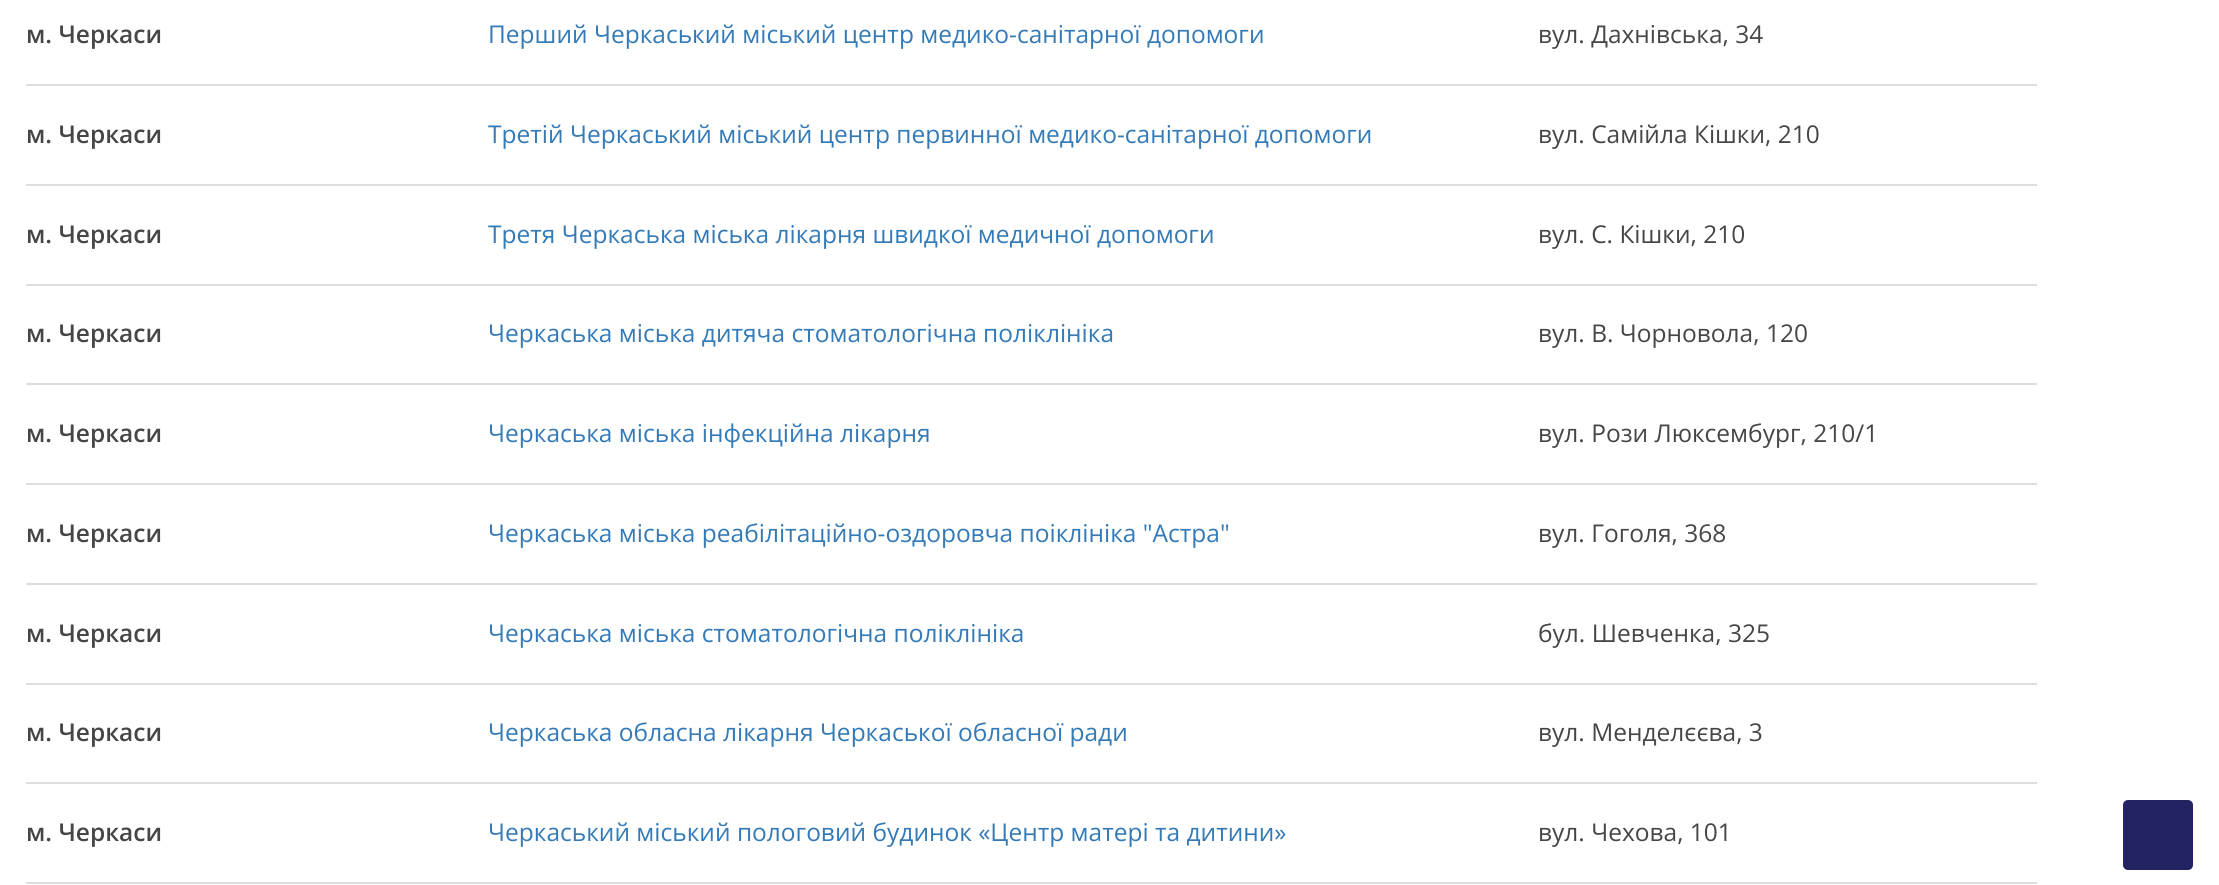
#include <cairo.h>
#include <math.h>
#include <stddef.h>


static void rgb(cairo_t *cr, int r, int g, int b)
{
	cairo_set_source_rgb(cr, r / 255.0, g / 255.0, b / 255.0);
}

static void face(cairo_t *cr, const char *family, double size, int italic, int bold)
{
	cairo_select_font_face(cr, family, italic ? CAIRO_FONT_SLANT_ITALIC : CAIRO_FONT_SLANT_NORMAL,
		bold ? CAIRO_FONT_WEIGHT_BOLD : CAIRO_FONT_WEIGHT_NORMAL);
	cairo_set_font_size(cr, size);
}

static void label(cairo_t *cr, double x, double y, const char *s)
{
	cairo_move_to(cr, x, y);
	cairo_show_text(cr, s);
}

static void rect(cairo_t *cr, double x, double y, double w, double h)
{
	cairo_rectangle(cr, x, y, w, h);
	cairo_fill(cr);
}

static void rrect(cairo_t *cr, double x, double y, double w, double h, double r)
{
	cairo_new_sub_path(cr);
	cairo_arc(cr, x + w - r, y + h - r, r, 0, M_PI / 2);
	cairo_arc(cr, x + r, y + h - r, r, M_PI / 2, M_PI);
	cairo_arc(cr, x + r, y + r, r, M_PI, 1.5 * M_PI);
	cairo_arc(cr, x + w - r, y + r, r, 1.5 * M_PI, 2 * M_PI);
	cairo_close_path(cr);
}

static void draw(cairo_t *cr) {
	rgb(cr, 255, 255, 255);
	cairo_paint(cr);
	face(cr, "Open Sans SemiBold", 24.5, 0, 0);
	rgb(cr, 70, 70, 70);
	label(cr, 26, 43, "м. Черкаси");
	face(cr, "Open Sans", 24.5, 0, 0);
	rgb(cr, 51, 122, 183);
	label(cr, 488, 43, "Перший Черкаський міський центр медико-санітарної допомоги");
	rgb(cr, 221, 221, 221);
	rect(cr, 26, 84, 2011, 2);
	rgb(cr, 70, 70, 70);
	label(cr, 1538, 43, "вул. Дахнівська, 34");
	face(cr, "Open Sans SemiBold", 24.5, 0, 0);
	label(cr, 26, 143, "м. Черкаси");
	face(cr, "Open Sans", 24.5, 0, 0);
	rgb(cr, 51, 122, 183);
	label(cr, 488, 143, "Третій Черкаський міський центр первинної медико-санітарної допомоги");
	rgb(cr, 221, 221, 221);
	rect(cr, 26, 184, 2011, 2);
	rgb(cr, 70, 70, 70);
	label(cr, 1538, 143, "вул. Самійла Кішки, 210");
	face(cr, "Open Sans SemiBold", 24.5, 0, 0);
	label(cr, 26, 243, "м. Черкаси");
	face(cr, "Open Sans", 24.5, 0, 0);
	rgb(cr, 51, 122, 183);
	label(cr, 488, 243, "Третя Черкаська міська лікарня швидкої медичної допомоги");
	rgb(cr, 221, 221, 221);
	rect(cr, 26, 284, 2011, 2);
	rgb(cr, 70, 70, 70);
	label(cr, 1538, 243, "вул. С. Кішки, 210");
	face(cr, "Open Sans SemiBold", 24.5, 0, 0);
	label(cr, 26, 342, "м. Черкаси");
	face(cr, "Open Sans", 24.5, 0, 0);
	rgb(cr, 51, 122, 183);
	label(cr, 488, 342, "Черкаська міська дитяча стоматологічна поліклініка");
	rgb(cr, 221, 221, 221);
	rect(cr, 26, 383, 2011, 2);
	rgb(cr, 70, 70, 70);
	label(cr, 1538, 342, "вул. В. Чорновола, 120");
	face(cr, "Open Sans SemiBold", 24.5, 0, 0);
	label(cr, 26, 442, "м. Черкаси");
	face(cr, "Open Sans", 24.5, 0, 0);
	rgb(cr, 51, 122, 183);
	label(cr, 488, 442, "Черкаська міська інфекційна лікарня");
	rgb(cr, 221, 221, 221);
	rect(cr, 26, 483, 2011, 2);
	rgb(cr, 70, 70, 70);
	label(cr, 1538, 442, "вул. Рози Люксембург, 210/1");
	face(cr, "Open Sans SemiBold", 24.5, 0, 0);
	label(cr, 26, 542, "м. Черкаси");
	face(cr, "Open Sans", 24.5, 0, 0);
	rgb(cr, 51, 122, 183);
	label(cr, 488, 542, "Черкаська міська реабілітаційно-оздоровча поіклініка \"Астра\"");
	rgb(cr, 221, 221, 221);
	rect(cr, 26, 583, 2011, 2);
	rgb(cr, 70, 70, 70);
	label(cr, 1538, 542, "вул. Гоголя, 368");
	face(cr, "Open Sans SemiBold", 24.5, 0, 0);
	label(cr, 26, 642, "м. Черкаси");
	face(cr, "Open Sans", 24.5, 0, 0);
	rgb(cr, 51, 122, 183);
	label(cr, 488, 642, "Черкаська міська стоматологічна поліклініка");
	rgb(cr, 221, 221, 221);
	rect(cr, 26, 683, 2011, 2);
	rgb(cr, 70, 70, 70);
	label(cr, 1538, 642, "бул. Шевченка, 325");
	face(cr, "Open Sans SemiBold", 24.5, 0, 0);
	label(cr, 26, 741, "м. Черкаси");
	face(cr, "Open Sans", 24.5, 0, 0);
	rgb(cr, 51, 122, 183);
	label(cr, 488, 741, "Черкаська обласна лікарня Черкаської обласної ради");
	rgb(cr, 221, 221, 221);
	rect(cr, 26, 782, 2011, 2);
	rgb(cr, 70, 70, 70);
	label(cr, 1538, 741, "вул. Менделєєва, 3");
	face(cr, "Open Sans SemiBold", 24.5, 0, 0);
	label(cr, 26, 841, "м. Черкаси");
	face(cr, "Open Sans", 24.5, 0, 0);
	rgb(cr, 51, 122, 183);
	label(cr, 488, 841, "Черкаський міський пологовий будинок «Центр матері та дитини»");
	rgb(cr, 221, 221, 221);
	rect(cr, 26, 882, 2011, 2);
	rgb(cr, 70, 70, 70);
	label(cr, 1538, 841, "вул. Чехова, 101");
	rgb(cr, 35, 35, 100);
	rrect(cr, 2123, 800, 70, 70, 5);
	cairo_fill(cr);
}

int main(void) {
	cairo_surface_t *surface = cairo_image_surface_create(CAIRO_FORMAT_RGB24, 2219, 885);
	cairo_t *cr = cairo_create(surface);
	cairo_font_options_t *options = cairo_font_options_create();
	cairo_font_options_set_hint_metrics(options, CAIRO_HINT_METRICS_OFF);
	cairo_font_options_set_hint_style(options, CAIRO_HINT_STYLE_NONE);
	cairo_set_font_options(cr, options);
	cairo_set_miter_limit(cr, 4);
	draw(cr);
	cairo_surface_write_to_png(surface, "render.png");
	cairo_font_options_destroy(options);
	cairo_destroy(cr);
	cairo_surface_destroy(surface);
	return 0;
}
